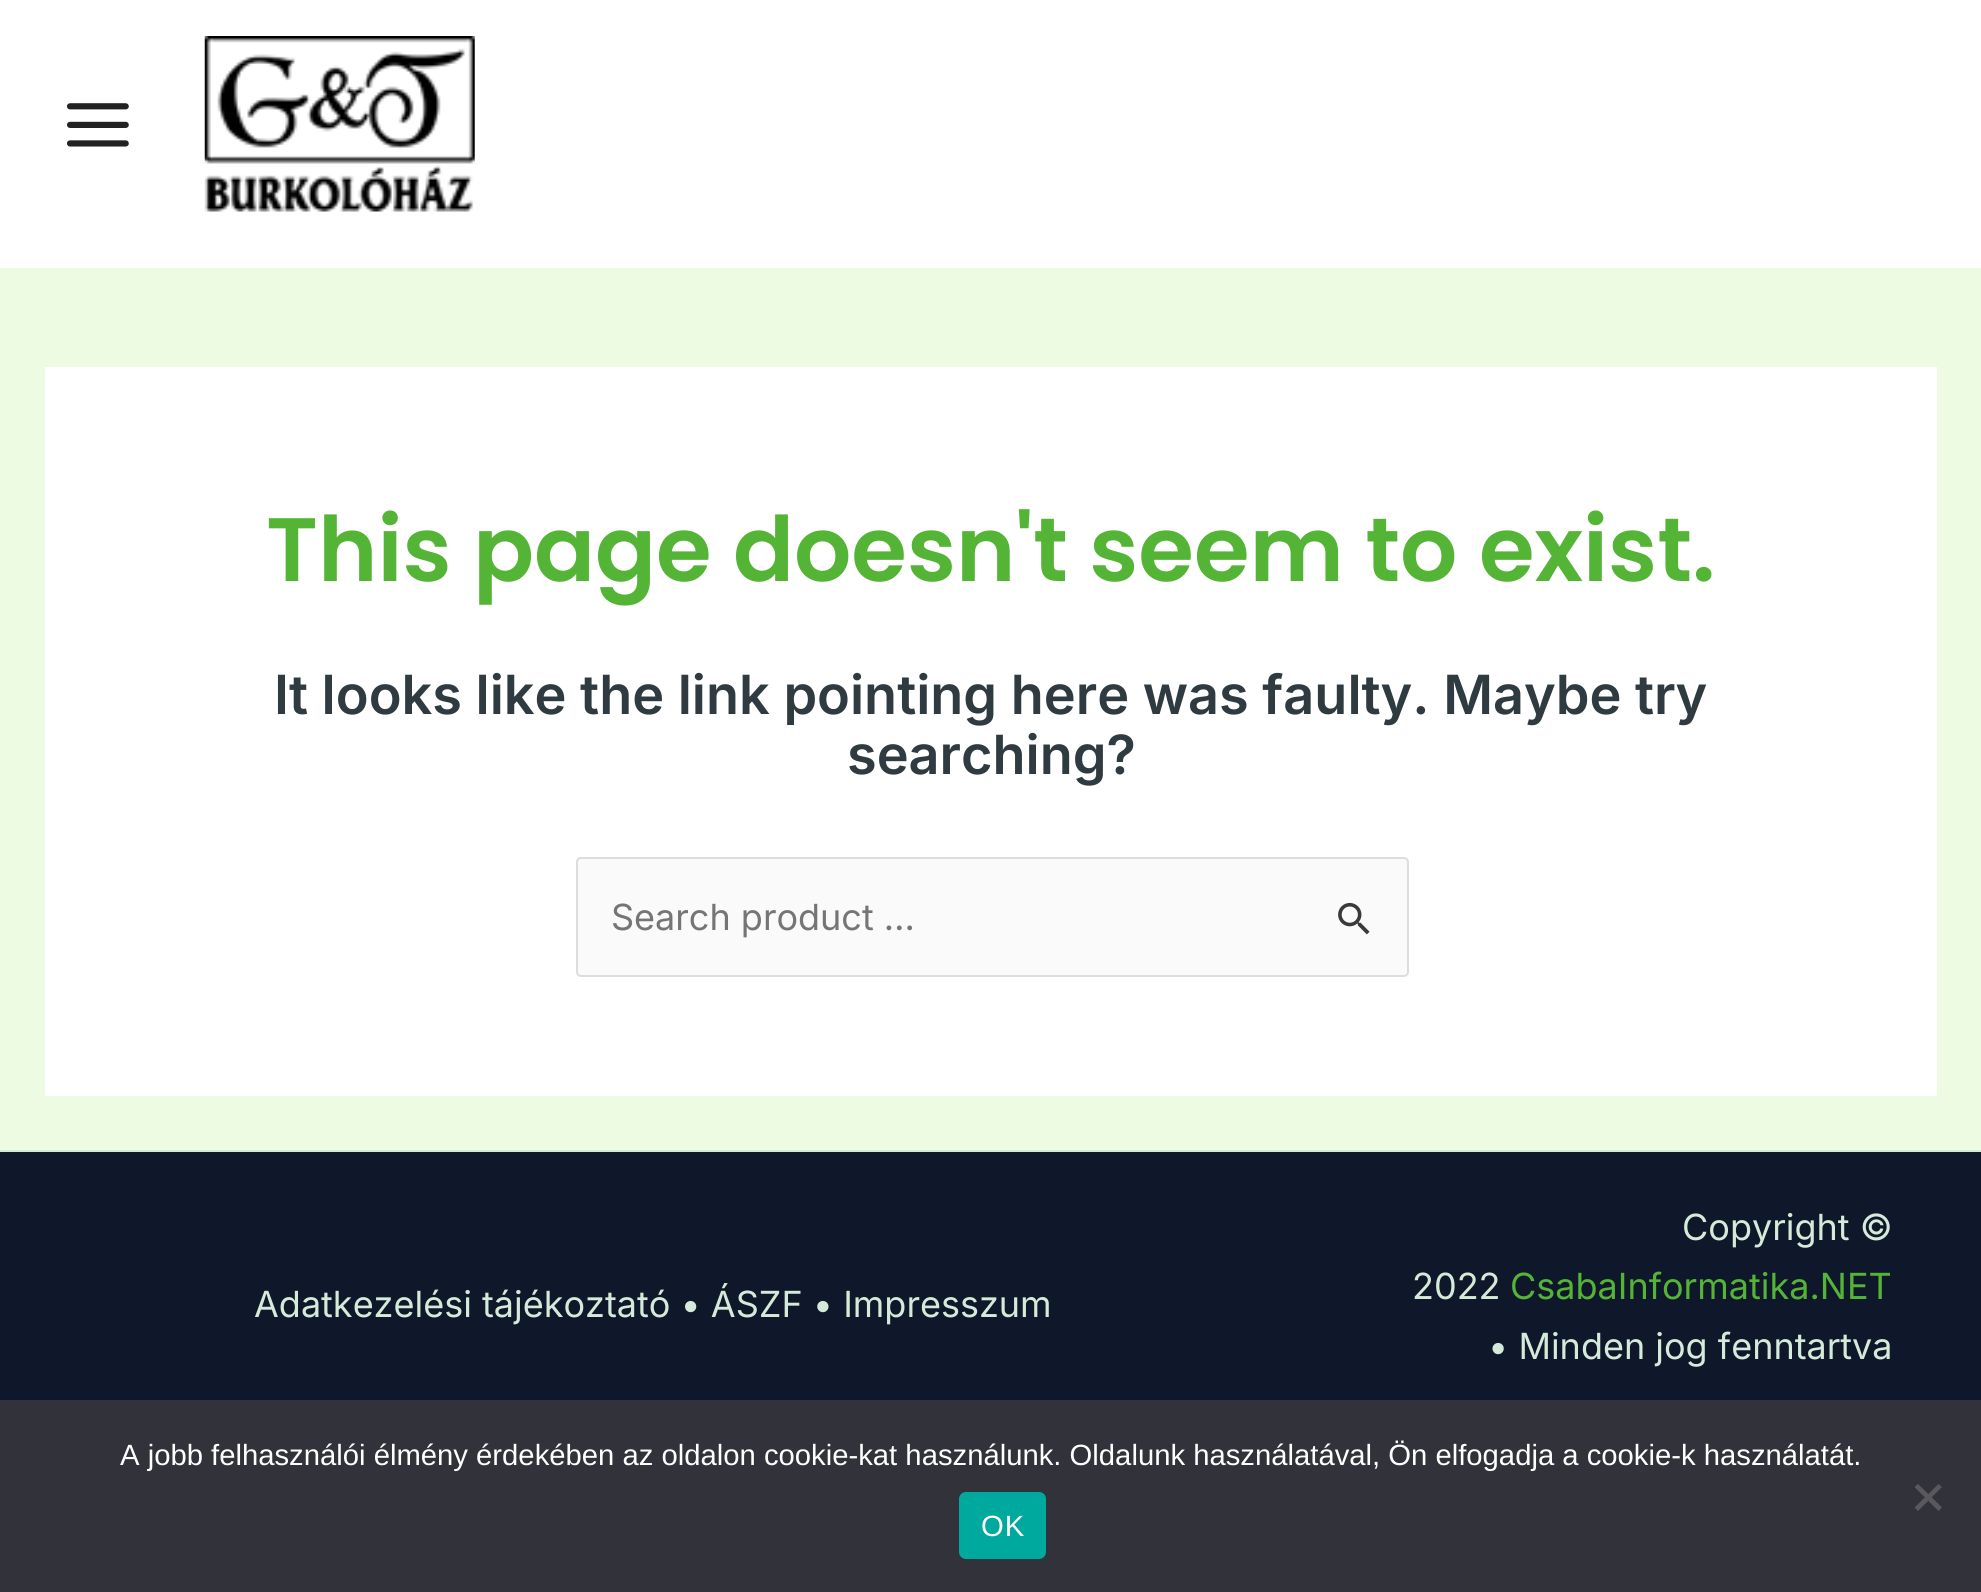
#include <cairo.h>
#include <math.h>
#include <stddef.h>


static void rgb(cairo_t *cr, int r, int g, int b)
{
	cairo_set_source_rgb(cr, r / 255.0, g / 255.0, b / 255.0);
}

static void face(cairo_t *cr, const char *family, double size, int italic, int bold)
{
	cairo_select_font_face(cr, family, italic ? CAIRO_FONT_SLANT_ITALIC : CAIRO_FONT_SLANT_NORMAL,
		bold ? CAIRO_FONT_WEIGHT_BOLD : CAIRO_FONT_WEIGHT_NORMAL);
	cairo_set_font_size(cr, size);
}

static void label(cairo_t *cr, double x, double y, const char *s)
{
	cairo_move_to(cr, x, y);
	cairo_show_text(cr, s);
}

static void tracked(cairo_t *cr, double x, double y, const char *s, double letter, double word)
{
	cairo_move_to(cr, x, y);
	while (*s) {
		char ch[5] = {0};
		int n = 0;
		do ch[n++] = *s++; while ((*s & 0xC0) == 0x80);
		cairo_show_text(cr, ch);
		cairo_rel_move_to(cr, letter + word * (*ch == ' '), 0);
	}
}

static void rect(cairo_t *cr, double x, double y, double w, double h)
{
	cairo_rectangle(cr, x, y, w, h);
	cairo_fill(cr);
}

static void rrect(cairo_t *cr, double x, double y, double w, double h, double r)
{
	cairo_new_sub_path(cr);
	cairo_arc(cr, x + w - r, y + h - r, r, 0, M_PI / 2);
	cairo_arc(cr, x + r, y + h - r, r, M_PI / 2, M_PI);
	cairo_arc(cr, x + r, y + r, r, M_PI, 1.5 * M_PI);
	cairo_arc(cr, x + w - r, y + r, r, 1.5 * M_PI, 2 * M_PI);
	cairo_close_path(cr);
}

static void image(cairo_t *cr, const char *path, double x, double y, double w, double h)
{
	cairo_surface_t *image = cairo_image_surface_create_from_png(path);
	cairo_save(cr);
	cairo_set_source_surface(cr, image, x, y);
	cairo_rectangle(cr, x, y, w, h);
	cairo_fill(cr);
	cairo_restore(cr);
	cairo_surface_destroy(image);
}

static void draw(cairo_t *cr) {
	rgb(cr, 237, 251, 226);
	cairo_paint(cr);
	rgb(cr, 255, 255, 255);
	rect(cr, 0, 0, 1981, 268);
	image(cr, "image0.png", 67, 103, 62, 44);
	image(cr, "image1.png", 204, 36, 271, 176);
	rect(cr, 45, 367, 1892, 729);
	face(cr, "Poppins SemiBold", 90, 0, 0);
	rgb(cr, 84, 180, 53);
	label(cr, 266, 581, "This page doesn't seem to exist.");
	face(cr, "Inter SemiBold", 54, 0, 0);
	rgb(cr, 47, 59, 64);
	label(cr, 274, 714, "It looks like the link pointing here was faulty. Maybe try");
	label(cr, 847, 774, "searching?");
	rgb(cr, 250, 250, 250);
	rrect(cr, 577, 858, 831, 118, 4);
	cairo_fill_preserve(cr);
	rgb(cr, 221, 221, 221);
	cairo_stroke(cr);
	face(cr, "Inter", 36, 0, 0);
	rgb(cr, 117, 117, 117);
	label(cr, 611, 930, "Search product …");
	image(cr, "image2.png", 1338, 902, 32, 33);
	rgb(cr, 15, 23, 42);
	rect(cr, 0, 1152, 1981, 248);
	rgb(cr, 213, 234, 216);
	rect(cr, 0, 1150, 1981, 2);
	label(cr, 254, 1317, "Adatkezelési tájékoztató • ÁSZF • Impresszum");
	label(cr, 1682, 1240, "Copyright ©");
	label(cr, 1412, 1299, "2022");
	rgb(cr, 84, 180, 53);
	label(cr, 1510, 1299, "CsabaInformatika.NET");
	rgb(cr, 213, 234, 216);
	label(cr, 1488, 1359, "• Minden jog fenntartva");
	rgb(cr, 50, 50, 58);
	rect(cr, 0, 1400, 1981, 192);
	face(cr, "Liberation Sans", 29.25, 0, 0);
	rgb(cr, 255, 255, 255);
	label(cr, 120, 1465, "A jobb felhasználói élmény érdekében az oldalon cookie-kat használunk. Oldalunk használatával, Ön elfogadja a cookie-k használatát.");
	rgb(cr, 89, 89, 93);
	cairo_new_path(cr);
	cairo_move_to(cr, 1938.5, 1484);
	cairo_line_to(cr, 1942, 1487);
	cairo_line_to(cr, 1918, 1511);
	cairo_line_to(cr, 1914.5, 1507.5);
	cairo_close_path(cr);
	cairo_fill(cr);
	cairo_new_path(cr);
	cairo_move_to(cr, 1914.5, 1487);
	cairo_line_to(cr, 1918, 1484);
	cairo_line_to(cr, 1942, 1507.5);
	cairo_line_to(cr, 1938.5, 1511);
	cairo_close_path(cr);
	cairo_fill(cr);
	rgb(cr, 0, 169, 157);
	rrect(cr, 959, 1492, 87, 67, 7);
	cairo_fill(cr);
	rgb(cr, 255, 255, 255);
	tracked(cr, 981, 1536, "OK", 1, 0);
}

int main(void) {
	cairo_surface_t *surface = cairo_image_surface_create(CAIRO_FORMAT_RGB24, 1981, 1592);
	cairo_t *cr = cairo_create(surface);
	cairo_font_options_t *options = cairo_font_options_create();
	cairo_font_options_set_hint_metrics(options, CAIRO_HINT_METRICS_OFF);
	cairo_font_options_set_hint_style(options, CAIRO_HINT_STYLE_NONE);
	cairo_set_font_options(cr, options);
	cairo_set_miter_limit(cr, 4);
	draw(cr);
	cairo_surface_write_to_png(surface, "render.png");
	cairo_font_options_destroy(options);
	cairo_destroy(cr);
	cairo_surface_destroy(surface);
	return 0;
}
